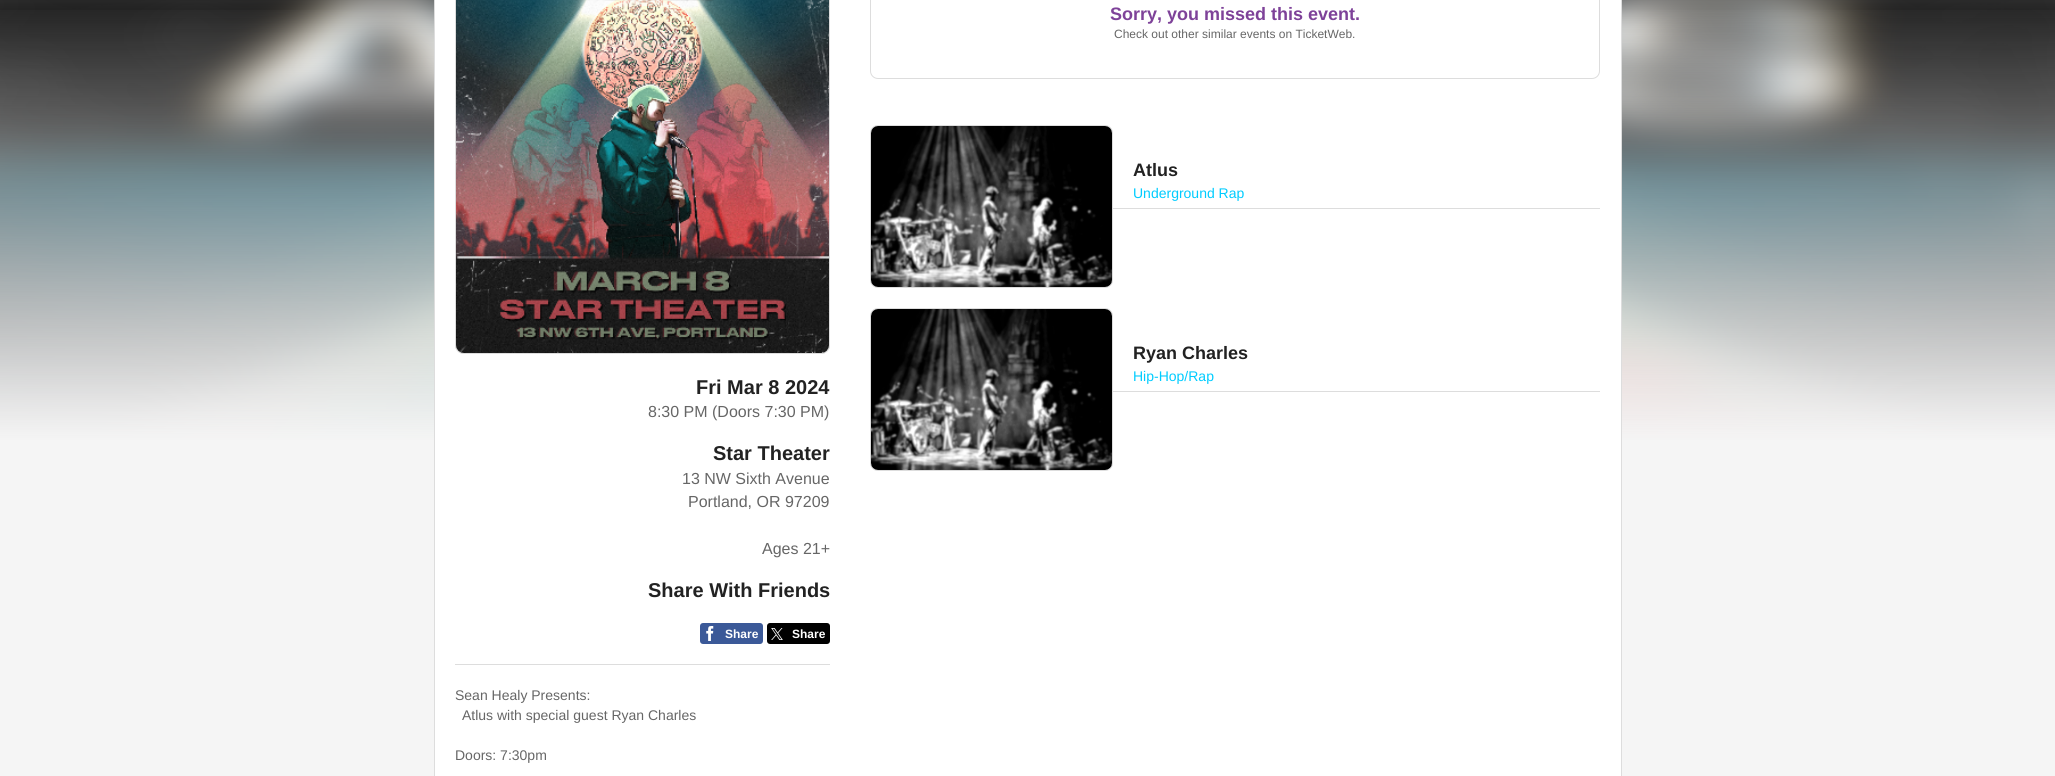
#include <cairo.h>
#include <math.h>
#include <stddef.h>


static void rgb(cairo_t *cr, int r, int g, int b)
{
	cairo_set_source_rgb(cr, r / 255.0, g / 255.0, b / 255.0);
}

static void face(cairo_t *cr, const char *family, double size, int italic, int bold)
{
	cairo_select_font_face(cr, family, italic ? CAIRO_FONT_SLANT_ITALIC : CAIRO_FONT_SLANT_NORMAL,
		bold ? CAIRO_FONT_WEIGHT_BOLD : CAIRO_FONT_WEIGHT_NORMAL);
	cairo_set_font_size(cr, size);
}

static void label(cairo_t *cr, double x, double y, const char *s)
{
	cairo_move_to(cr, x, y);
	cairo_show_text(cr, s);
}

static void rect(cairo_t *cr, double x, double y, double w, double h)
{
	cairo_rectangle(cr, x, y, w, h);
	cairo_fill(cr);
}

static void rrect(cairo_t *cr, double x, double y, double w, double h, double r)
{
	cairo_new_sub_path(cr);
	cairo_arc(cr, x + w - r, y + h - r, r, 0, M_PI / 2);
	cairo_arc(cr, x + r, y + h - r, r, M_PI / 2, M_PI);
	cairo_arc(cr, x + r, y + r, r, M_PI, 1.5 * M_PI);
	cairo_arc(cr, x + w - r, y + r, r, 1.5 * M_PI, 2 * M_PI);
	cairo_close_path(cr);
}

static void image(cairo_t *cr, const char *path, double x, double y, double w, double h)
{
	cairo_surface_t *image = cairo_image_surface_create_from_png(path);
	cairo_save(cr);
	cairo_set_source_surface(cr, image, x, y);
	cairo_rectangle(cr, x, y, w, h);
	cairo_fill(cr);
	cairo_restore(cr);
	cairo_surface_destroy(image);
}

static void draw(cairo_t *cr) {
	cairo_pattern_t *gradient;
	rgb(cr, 255, 255, 255);
	cairo_paint(cr);
	image(cr, "image0.png", 0, 0, 2055, 440);
	gradient = cairo_pattern_create_linear(1028, 0, 1028, 776);
	cairo_pattern_add_color_stop_rgba(gradient, 0, 0.961, 0.961, 0.961, 0);
	cairo_pattern_add_color_stop_rgba(gradient, 0.57, 0.961, 0.961, 0.961, 1);
	cairo_set_source(cr, gradient);
	cairo_pattern_destroy(gradient);
	rect(cr, 0, 10, 2055, 766);
	rgb(cr, 255, 255, 255);
	cairo_rectangle(cr, 434.5, -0.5, 1187, 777);
	cairo_fill_preserve(cr);
	rgb(cr, 221, 221, 221);
	cairo_set_line_width(cr, 1);
	cairo_stroke(cr);
	rrect(cr, 870.5, -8.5, 729, 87, 7.5);
	cairo_stroke(cr);
	face(cr, "Liberation Sans", 18, 0, 1);
	rgb(cr, 126, 66, 153);
	label(cr, 1110, 20, "Sorry, you missed this event.");
	face(cr, "Liberation Sans", 12, 0, 0);
	rgb(cr, 102, 102, 102);
	label(cr, 1114, 38, "Check out other similar events on TicketWeb.");
	rrect(cr, 870.5, 125.5, 242, 162, 7.5);
	rgb(cr, 221, 221, 221);
	cairo_stroke(cr);
	image(cr, "image1.png", 871, 126, 241, 161);
	rect(cr, 1113, 208, 487, 1);
	face(cr, "Liberation Sans", 18, 0, 1);
	rgb(cr, 34, 34, 34);
	label(cr, 1133, 176, "Atlus");
	face(cr, "Liberation Sans", 14, 0, 0);
	rgb(cr, 0, 204, 255);
	label(cr, 1133, 198, "Underground Rap");
	rrect(cr, 870.5, 308.5, 242, 162, 7.5);
	rgb(cr, 221, 221, 221);
	cairo_stroke(cr);
	image(cr, "image1.png", 871, 309, 241, 161);
	rect(cr, 1113, 391, 487, 1);
	face(cr, "Liberation Sans", 18, 0, 1);
	rgb(cr, 34, 34, 34);
	label(cr, 1133, 359, "Ryan Charles");
	face(cr, "Liberation Sans", 14, 0, 0);
	rgb(cr, 0, 204, 255);
	label(cr, 1133, 381, "Hip-Hop/Rap");
	rrect(cr, 455.5, -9.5, 374, 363, 8.5);
	rgb(cr, 221, 221, 221);
	cairo_stroke(cr);
	rrect(cr, 455.5, -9.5, 374, 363, 8.5);
	cairo_stroke(cr);
	image(cr, "image2.png", 456, 0, 373, 353);
	gradient = cairo_pattern_create_linear(643, -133, 643, 353);
	cairo_pattern_add_color_stop_rgba(gradient, 0.5, 0, 0, 0, 0);
	cairo_pattern_add_color_stop_rgba(gradient, 1, 0, 0, 0, 0.2);
	cairo_set_source(cr, gradient);
	cairo_pattern_destroy(gradient);
	rrect(cr, 456, -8, 373, 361, 8);
	cairo_fill(cr);
	face(cr, "Liberation Sans", 20, 0, 1);
	rgb(cr, 34, 34, 34);
	label(cr, 696, 394, "Fri Mar 8 2024");
	face(cr, "Liberation Sans", 16, 0, 0);
	rgb(cr, 102, 102, 102);
	label(cr, 648, 417, "8:30 PM (Doors 7:30 PM)");
	face(cr, "Liberation Sans", 20, 0, 1);
	rgb(cr, 34, 34, 34);
	label(cr, 713, 460, "Star Theater");
	face(cr, "Liberation Sans", 16, 0, 0);
	rgb(cr, 102, 102, 102);
	label(cr, 682, 484, "13 NW Sixth Avenue");
	label(cr, 688, 507, "Portland, OR 97209");
	label(cr, 762, 554, "Ages 21+");
	face(cr, "Liberation Sans", 20, 0, 1);
	rgb(cr, 34, 34, 34);
	label(cr, 648, 597, "Share With Friends");
	rgb(cr, 59, 89, 152);
	rrect(cr, 700, 623, 63, 21, 3);
	cairo_fill(cr);
	image(cr, "image3.png", 706, 626, 8, 15);
	face(cr, "Liberation Sans", 12, 0, 1);
	rgb(cr, 255, 255, 255);
	label(cr, 725, 638, "Share");
	rgb(cr, 0, 0, 0);
	rrect(cr, 767, 623, 63, 21, 3);
	cairo_fill(cr);
	image(cr, "image4.png", 771, 628, 12, 12);
	rgb(cr, 255, 255, 255);
	label(cr, 792, 638, "Share");
	rgb(cr, 221, 221, 221);
	rect(cr, 455, 664, 375, 1);
	face(cr, "Liberation Sans", 14, 0, 0);
	rgb(cr, 102, 102, 102);
	label(cr, 455, 700, "Sean Healy Presents:");
	label(cr, 462, 720, "Atlus with special guest Ryan Charles");
	label(cr, 455, 760, "Doors: 7:30pm");
}

int main(void) {
	cairo_surface_t *surface = cairo_image_surface_create(CAIRO_FORMAT_RGB24, 2055, 776);
	cairo_t *cr = cairo_create(surface);
	cairo_font_options_t *options = cairo_font_options_create();
	cairo_font_options_set_hint_metrics(options, CAIRO_HINT_METRICS_OFF);
	cairo_font_options_set_hint_style(options, CAIRO_HINT_STYLE_NONE);
	cairo_set_font_options(cr, options);
	cairo_set_miter_limit(cr, 4);
	draw(cr);
	cairo_surface_write_to_png(surface, "render.png");
	cairo_font_options_destroy(options);
	cairo_destroy(cr);
	cairo_surface_destroy(surface);
	return 0;
}
